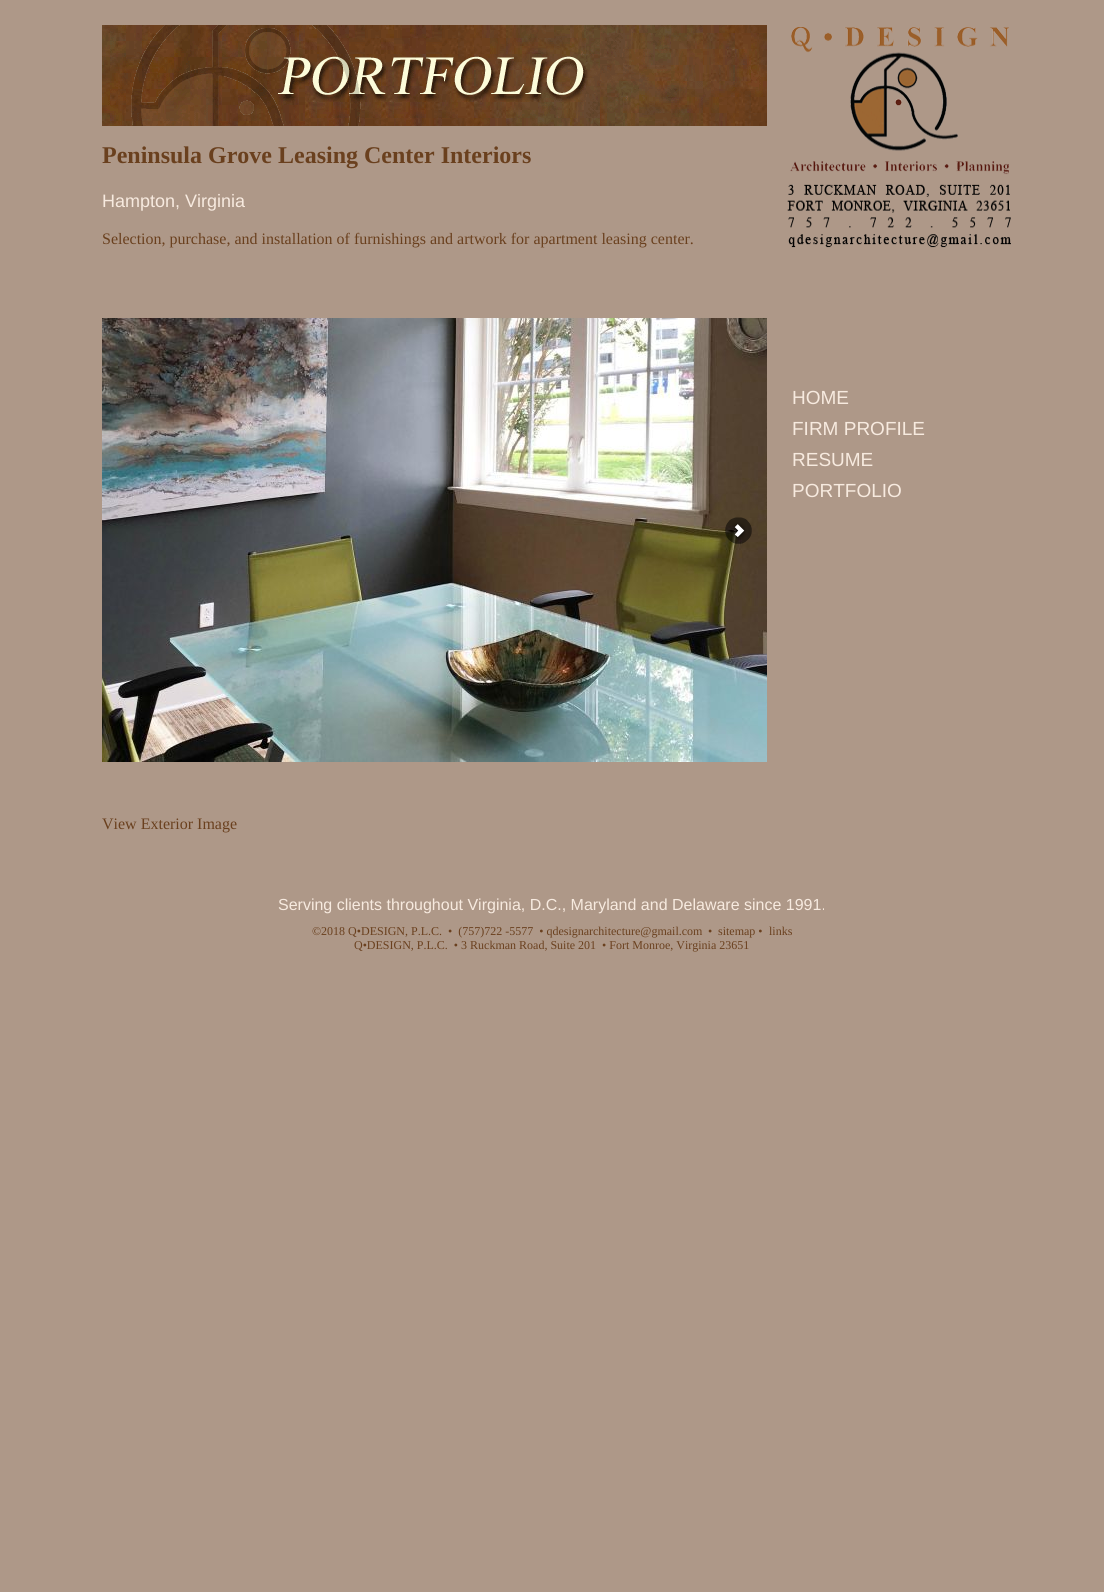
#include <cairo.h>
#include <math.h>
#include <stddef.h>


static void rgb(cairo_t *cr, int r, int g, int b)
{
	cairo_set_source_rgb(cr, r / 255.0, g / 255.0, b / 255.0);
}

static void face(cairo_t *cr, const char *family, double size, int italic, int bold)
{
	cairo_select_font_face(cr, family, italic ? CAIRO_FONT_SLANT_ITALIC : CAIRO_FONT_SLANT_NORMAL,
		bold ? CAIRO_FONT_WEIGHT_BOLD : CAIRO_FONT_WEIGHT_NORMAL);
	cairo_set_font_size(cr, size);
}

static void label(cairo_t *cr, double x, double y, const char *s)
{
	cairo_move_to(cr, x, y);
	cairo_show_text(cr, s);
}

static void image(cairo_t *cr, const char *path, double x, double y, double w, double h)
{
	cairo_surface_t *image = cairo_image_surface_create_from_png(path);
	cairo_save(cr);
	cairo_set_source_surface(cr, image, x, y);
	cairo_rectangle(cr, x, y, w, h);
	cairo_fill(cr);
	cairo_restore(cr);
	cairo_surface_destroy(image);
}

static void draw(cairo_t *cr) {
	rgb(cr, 174, 152, 136);
	cairo_paint(cr);
	image(cr, "image0.png", 102, 25, 665, 101);
	face(cr, "Liberation Serif", 24, 0, 1);
	rgb(cr, 106, 64, 30);
	label(cr, 102, 163, "Peninsula Grove Leasing Center Interiors");
	face(cr, "Liberation Sans", 18, 0, 0);
	rgb(cr, 247, 234, 223);
	label(cr, 102, 207, "Hampton, Virginia");
	face(cr, "Liberation Serif", 16, 0, 0);
	rgb(cr, 106, 64, 30);
	label(cr, 102, 244, "Selection, purchase, and installation of furnishings and artwork for apartment leasing center.");
	image(cr, "image1.png", 102, 318, 665, 444);
	image(cr, "image2.png", 725, 517, 27, 27);
	label(cr, 102, 829, "View Exterior Image");
	image(cr, "image3.png", 787, 27, 224, 221);
	face(cr, "Liberation Sans", 19, 0, 0);
	rgb(cr, 247, 234, 223);
	label(cr, 792, 404, "HOME");
	label(cr, 792, 435, "FIRM PROFILE");
	label(cr, 792, 466, "RESUME");
	label(cr, 792, 497, "PORTFOLIO");
	face(cr, "Liberation Sans", 16, 0, 0);
	label(cr, 278, 910, "Serving clients throughout Virginia, D.C., Maryland and Delaware since 1991.");
	face(cr, "Liberation Serif", 12, 0, 0);
	rgb(cr, 106, 64, 30);
	label(cr, 312, 935, "©2018 Q•DESIGN, P.L.C.  •  (757)722 -5577  • qdesignarchitecture@gmail.com");
	label(cr, 708, 935, "•");
	label(cr, 718, 935, "sitemap •");
	label(cr, 769, 935, "links");
	label(cr, 354, 949, "Q•DESIGN, P.L.C.  • 3 Ruckman Road, Suite 201  • Fort Monroe, Virginia 23651");
}

int main(void) {
	cairo_surface_t *surface = cairo_image_surface_create(CAIRO_FORMAT_RGB24, 1104, 1592);
	cairo_t *cr = cairo_create(surface);
	cairo_font_options_t *options = cairo_font_options_create();
	cairo_font_options_set_hint_metrics(options, CAIRO_HINT_METRICS_OFF);
	cairo_font_options_set_hint_style(options, CAIRO_HINT_STYLE_NONE);
	cairo_set_font_options(cr, options);
	cairo_set_miter_limit(cr, 4);
	draw(cr);
	cairo_surface_write_to_png(surface, "render.png");
	cairo_font_options_destroy(options);
	cairo_destroy(cr);
	cairo_surface_destroy(surface);
	return 0;
}
